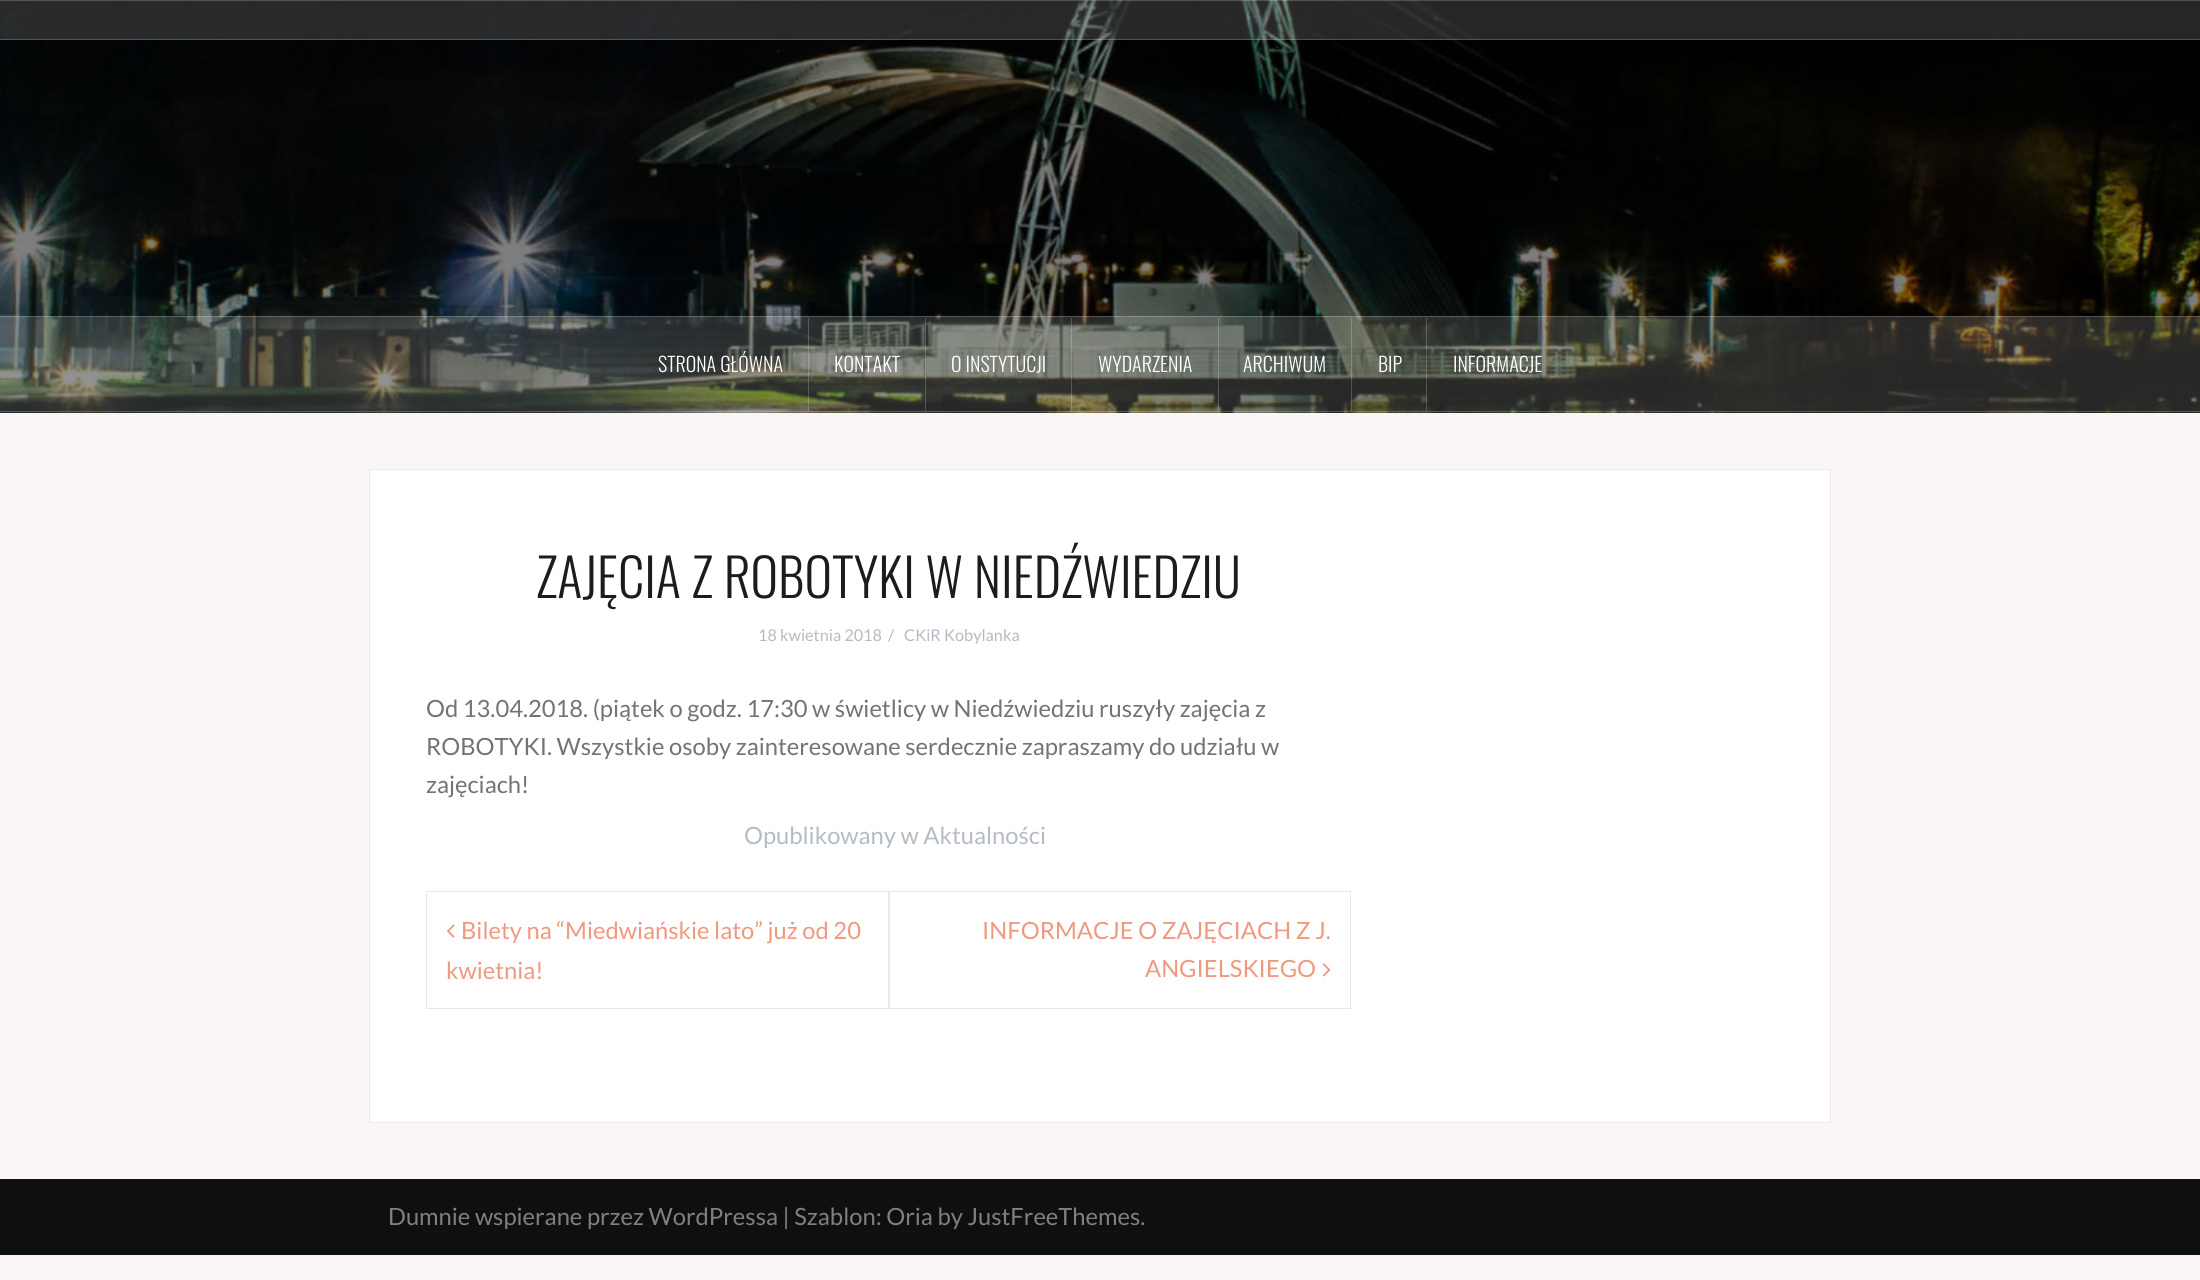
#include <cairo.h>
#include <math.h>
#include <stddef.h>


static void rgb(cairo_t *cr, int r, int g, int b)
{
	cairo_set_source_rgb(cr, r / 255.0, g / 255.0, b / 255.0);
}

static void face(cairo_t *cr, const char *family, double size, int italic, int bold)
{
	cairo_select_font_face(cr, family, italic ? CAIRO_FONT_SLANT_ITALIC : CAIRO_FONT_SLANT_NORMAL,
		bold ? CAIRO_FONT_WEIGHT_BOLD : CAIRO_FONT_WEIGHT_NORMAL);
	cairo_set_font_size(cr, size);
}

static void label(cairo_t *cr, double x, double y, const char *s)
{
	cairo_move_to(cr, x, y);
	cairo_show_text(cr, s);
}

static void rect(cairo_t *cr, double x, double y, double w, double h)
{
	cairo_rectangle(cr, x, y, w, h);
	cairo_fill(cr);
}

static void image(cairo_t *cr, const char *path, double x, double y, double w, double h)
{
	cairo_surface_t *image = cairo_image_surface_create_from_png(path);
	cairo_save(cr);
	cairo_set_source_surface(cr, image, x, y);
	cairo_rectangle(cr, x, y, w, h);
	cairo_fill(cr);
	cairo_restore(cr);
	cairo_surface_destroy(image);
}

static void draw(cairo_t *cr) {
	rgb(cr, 249, 246, 245);
	cairo_paint(cr);
	image(cr, "image0.png", 0, 0, 2200, 413);
	cairo_set_source_rgba(cr, 1, 1, 1, 0.15);
	rect(cr, 0, 0, 2200, 40);
	cairo_set_source_rgba(cr, 1, 1, 1, 0.2);
	rect(cr, 0, 0, 2200, 1);
	rect(cr, 0, 39, 2200, 1);
	cairo_set_source_rgba(cr, 1, 1, 1, 0.15);
	rect(cr, 0, 316, 2200, 97);
	cairo_set_source_rgba(cr, 1, 1, 1, 0.2);
	rect(cr, 0, 316, 2200, 1);
	rect(cr, 0, 411, 2200, 1);
	rect(cr, 808, 318, 1, 93);
	face(cr, "Oswald Light", 20, 0, 0);
	rgb(cr, 255, 255, 255);
	label(cr, 658, 372, "STRONA GŁÓWNA");
	cairo_set_source_rgba(cr, 1, 1, 1, 0.2);
	rect(cr, 925, 318, 1, 93);
	rgb(cr, 255, 255, 255);
	label(cr, 834, 372, "KONTAKT");
	cairo_set_source_rgba(cr, 1, 1, 1, 0.2);
	rect(cr, 1071, 318, 1, 93);
	rgb(cr, 255, 255, 255);
	label(cr, 951, 372, "O INSTYTUCJI");
	cairo_set_source_rgba(cr, 1, 1, 1, 0.2);
	rect(cr, 1218, 318, 1, 93);
	rgb(cr, 255, 255, 255);
	label(cr, 1098, 372, "WYDARZENIA");
	cairo_set_source_rgba(cr, 1, 1, 1, 0.2);
	rect(cr, 1351, 318, 1, 93);
	rgb(cr, 255, 255, 255);
	label(cr, 1243, 372, "ARCHIWUM");
	cairo_set_source_rgba(cr, 1, 1, 1, 0.2);
	rect(cr, 1426, 318, 1, 93);
	rgb(cr, 255, 255, 255);
	label(cr, 1378, 372, "BIP");
	label(cr, 1453, 372, "INFORMACJE");
	cairo_rectangle(cr, 369.5, 469.5, 1461, 653);
	cairo_fill_preserve(cr);
	rgb(cr, 232, 232, 232);
	cairo_set_line_width(cr, 1);
	cairo_stroke(cr);
	face(cr, "Oswald Light", 52.5, 0, 0);
	rgb(cr, 28, 28, 28);
	label(cr, 536, 598, "ZAJĘCIA Z ROBOTYKI W NIEDŹWIEDZIU");
	face(cr, "Lato", 16.25, 0, 0);
	rgb(cr, 181, 187, 197);
	label(cr, 758, 641, "18 kwietnia 2018");
	label(cr, 888, 641, "/");
	label(cr, 904, 641, "CKiR Kobylanka");
	face(cr, "Lato", 23.75, 0, 0);
	rgb(cr, 113, 115, 118);
	label(cr, 426, 717, "Od 13.04.2018. (piątek o godz. 17:30 w świetlicy w Niedźwiedziu ruszyły zajęcia z");
	label(cr, 426, 755, "ROBOTYKI. Wszystkie osoby zainteresowane serdecznie zapraszamy do udziału w");
	label(cr, 426, 793, "zajęciach!");
	rgb(cr, 181, 187, 197);
	label(cr, 744, 844, "Opublikowany w Aktualności");
	cairo_rectangle(cr, 426.5, 891.5, 462, 117);
	rgb(cr, 232, 232, 232);
	cairo_stroke(cr);
	image(cr, "image1.png", 446, 924, 9, 14);
	rgb(cr, 239, 153, 127);
	label(cr, 461, 939, "Bilety na “Miedwiańskie lato” już od 20");
	label(cr, 446, 979, "kwietnia!");
	cairo_rectangle(cr, 889.5, 891.5, 461, 117);
	rgb(cr, 232, 232, 232);
	cairo_stroke(cr);
	rgb(cr, 239, 153, 127);
	label(cr, 982, 939, "INFORMACJE O ZAJĘCIACH Z J.");
	label(cr, 1145, 977, "ANGIELSKIEGO");
	image(cr, "image2.png", 1322, 963, 9, 14);
	rgb(cr, 13, 15, 16);
	rect(cr, 0, 1179, 2200, 76);
	rgb(cr, 128, 128, 128);
	label(cr, 388, 1225, "Dumnie wspierane przez WordPressa | Szablon: Oria by JustFreeThemes.");
}

int main(void) {
	cairo_surface_t *surface = cairo_image_surface_create(CAIRO_FORMAT_RGB24, 2200, 1280);
	cairo_t *cr = cairo_create(surface);
	cairo_font_options_t *options = cairo_font_options_create();
	cairo_font_options_set_hint_metrics(options, CAIRO_HINT_METRICS_OFF);
	cairo_font_options_set_hint_style(options, CAIRO_HINT_STYLE_NONE);
	cairo_set_font_options(cr, options);
	cairo_set_miter_limit(cr, 4);
	draw(cr);
	cairo_surface_write_to_png(surface, "render.png");
	cairo_font_options_destroy(options);
	cairo_destroy(cr);
	cairo_surface_destroy(surface);
	return 0;
}
